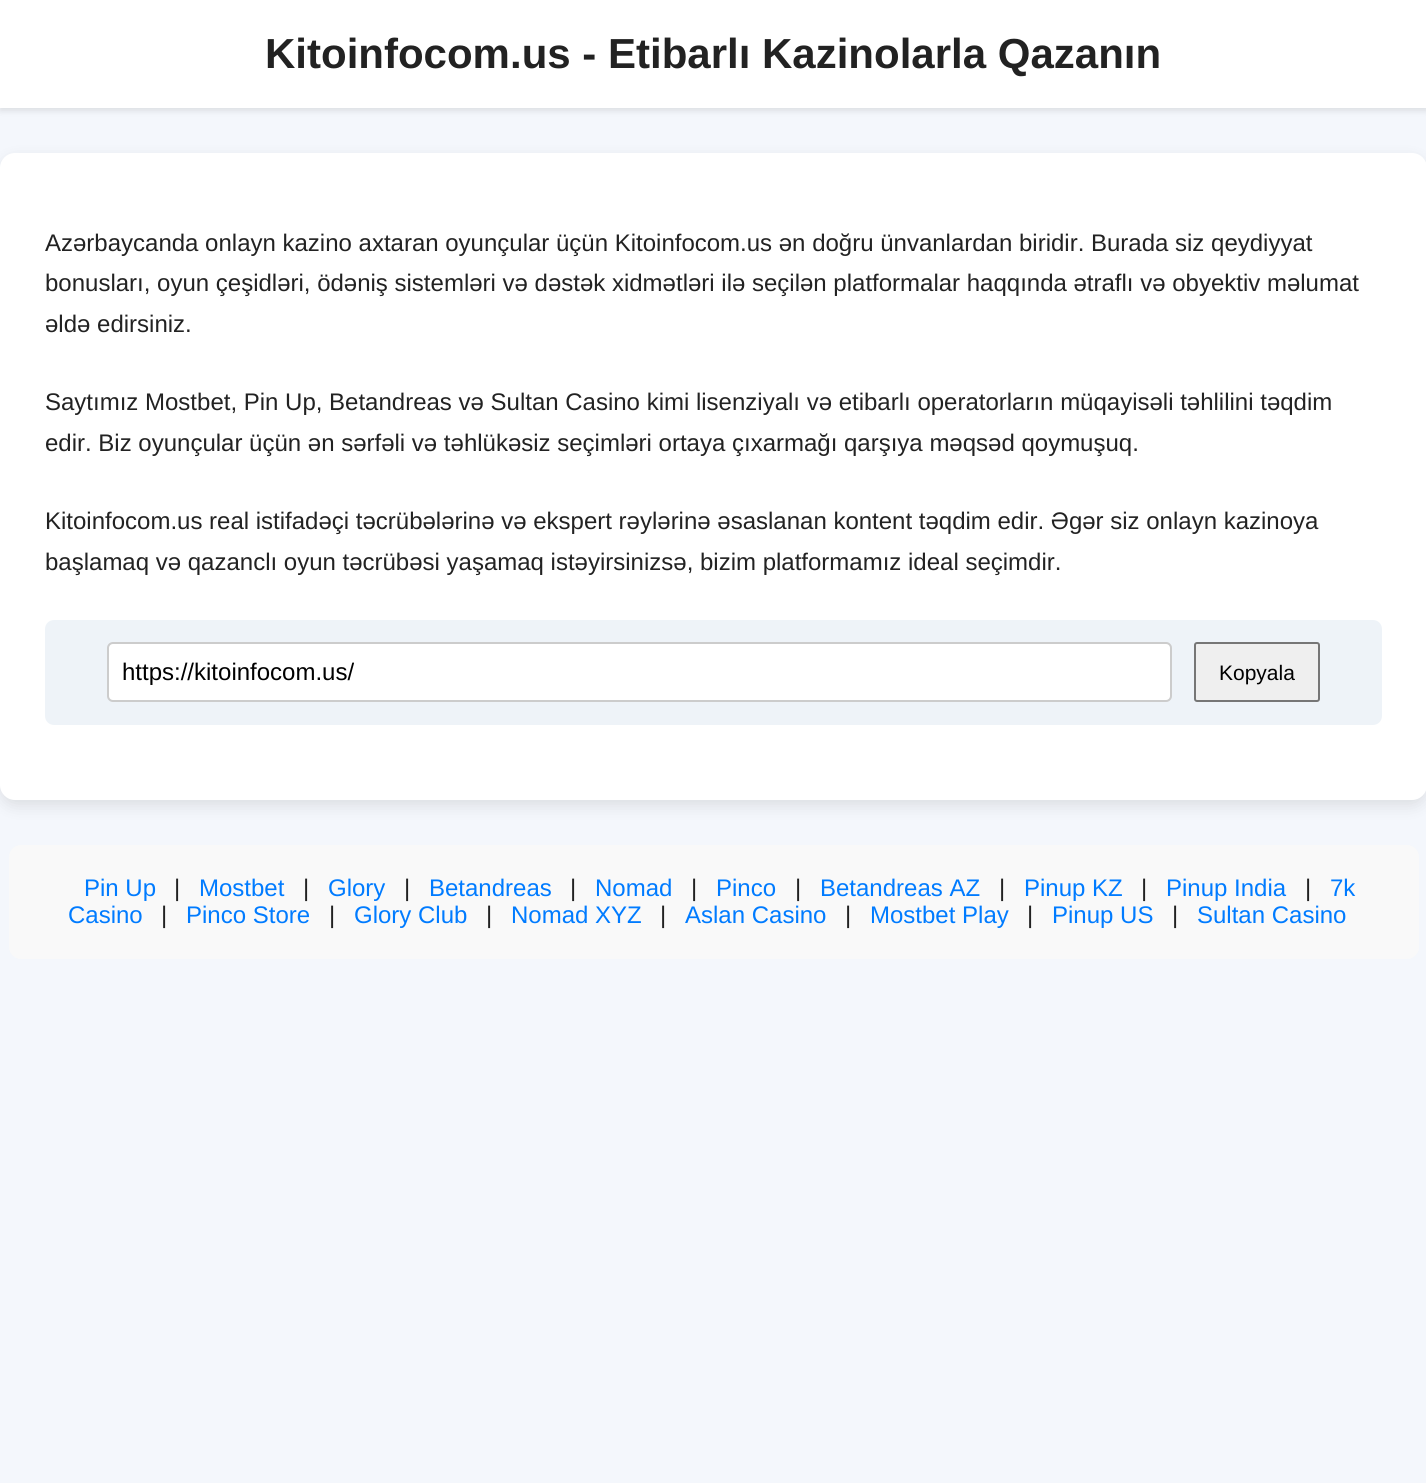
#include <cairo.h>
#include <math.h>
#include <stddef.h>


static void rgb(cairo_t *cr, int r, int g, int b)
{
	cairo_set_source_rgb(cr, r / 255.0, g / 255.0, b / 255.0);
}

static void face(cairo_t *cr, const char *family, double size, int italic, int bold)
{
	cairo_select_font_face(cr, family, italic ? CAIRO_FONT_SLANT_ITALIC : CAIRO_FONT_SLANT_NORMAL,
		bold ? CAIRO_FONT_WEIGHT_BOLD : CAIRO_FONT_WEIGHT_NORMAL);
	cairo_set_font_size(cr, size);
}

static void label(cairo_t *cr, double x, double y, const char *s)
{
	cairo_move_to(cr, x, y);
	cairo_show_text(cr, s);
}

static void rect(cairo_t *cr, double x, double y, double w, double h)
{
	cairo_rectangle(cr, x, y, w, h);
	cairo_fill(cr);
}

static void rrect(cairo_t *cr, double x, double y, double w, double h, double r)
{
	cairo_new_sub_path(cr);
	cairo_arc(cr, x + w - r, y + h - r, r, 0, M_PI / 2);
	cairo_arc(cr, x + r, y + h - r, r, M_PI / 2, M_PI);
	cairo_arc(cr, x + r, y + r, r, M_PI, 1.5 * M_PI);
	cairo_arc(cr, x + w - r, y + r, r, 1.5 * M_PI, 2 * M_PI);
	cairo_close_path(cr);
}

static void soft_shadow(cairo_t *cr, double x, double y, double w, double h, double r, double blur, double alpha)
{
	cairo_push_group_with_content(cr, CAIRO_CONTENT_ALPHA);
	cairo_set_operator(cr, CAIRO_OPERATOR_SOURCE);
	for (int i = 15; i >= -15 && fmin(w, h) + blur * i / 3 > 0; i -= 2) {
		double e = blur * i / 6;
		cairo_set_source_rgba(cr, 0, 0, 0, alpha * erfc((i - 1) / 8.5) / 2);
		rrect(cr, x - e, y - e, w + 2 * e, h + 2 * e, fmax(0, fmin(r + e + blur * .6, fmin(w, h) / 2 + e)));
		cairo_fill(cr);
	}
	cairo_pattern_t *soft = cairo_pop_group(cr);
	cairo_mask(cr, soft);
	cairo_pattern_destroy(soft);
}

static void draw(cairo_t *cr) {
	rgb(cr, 244, 247, 252);
	cairo_paint(cr);
	rgb(cr, 0, 0, 0);
	soft_shadow(cr, 0, 3, 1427, 108, 0, 3, 0.1);
	rgb(cr, 255, 255, 255);
	rect(cr, 0, 0, 1426, 108);
	face(cr, "Liberation Sans", 42, 0, 1);
	rgb(cr, 34, 34, 34);
	label(cr, 265, 68, "Kitoinfocom.us - Etibarlı Kazinolarla Qazanın");
	rgb(cr, 0, 0, 0);
	soft_shadow(cr, 0, 159, 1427, 647, 15, 7.5, 0.1);
	rgb(cr, 255, 255, 255);
	rrect(cr, 0, 153, 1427, 647, 15);
	cairo_fill(cr);
	face(cr, "Liberation Sans", 24, 0, 0);
	rgb(cr, 34, 34, 34);
	label(cr, 45, 251, "Azərbaycanda onlayn kazino axtaran oyunçular üçün Kitoinfocom.us ən doğru ünvanlardan biridir. Burada siz qeydiyyat");
	label(cr, 45, 291, "bonusları, oyun çeşidləri, ödəniş sistemləri və dəstək xidmətləri ilə seçilən platformalar haqqında ətraflı və obyektiv məlumat");
	label(cr, 45, 332, "əldə edirsiniz.");
	label(cr, 45, 410, "Saytımız Mostbet, Pin Up, Betandreas və Sultan Casino kimi lisenziyalı və etibarlı operatorların müqayisəli təhlilini təqdim");
	label(cr, 45, 451, "edir. Biz oyunçular üçün ən sərfəli və təhlükəsiz seçimləri ortaya çıxarmağı qarşıya məqsəd qoymuşuq.");
	label(cr, 45, 529, "Kitoinfocom.us real istifadəçi təcrübələrinə və ekspert rəylərinə əsaslanan kontent təqdim edir. Əgər siz onlayn kazinoya");
	label(cr, 45, 570, "başlamaq və qazanclı oyun təcrübəsi yaşamaq istəyirsinizsə, bizim platformamız ideal seçimdir.");
	rgb(cr, 238, 243, 248);
	rrect(cr, 45, 620, 1337, 105, 9);
	cairo_fill(cr);
	rgb(cr, 255, 255, 255);
	rrect(cr, 108, 643, 1063, 58, 5);
	cairo_fill_preserve(cr);
	rgb(cr, 204, 204, 204);
	cairo_stroke(cr);
	rgb(cr, 0, 0, 0);
	label(cr, 122, 680, "https://kitoinfocom.us/");
	rgb(cr, 239, 239, 239);
	rrect(cr, 1195, 643, 124, 58, 2);
	cairo_fill_preserve(cr);
	rgb(cr, 118, 118, 118);
	cairo_stroke(cr);
	face(cr, "Liberation Sans", 21, 0, 0);
	rgb(cr, 0, 0, 0);
	label(cr, 1219, 680, "Kopyala");
	rgb(cr, 249, 249, 249);
	rrect(cr, 9, 845, 1410, 114, 12);
	cairo_fill(cr);
	face(cr, "Liberation Sans", 24, 0, 0);
	rgb(cr, 0, 123, 255);
	label(cr, 84, 896, "Pin Up");
	rgb(cr, 34, 34, 34);
	label(cr, 174, 896, "|");
	rgb(cr, 0, 123, 255);
	label(cr, 199, 896, "Mostbet");
	rgb(cr, 34, 34, 34);
	label(cr, 303, 896, "|");
	rgb(cr, 0, 123, 255);
	label(cr, 328, 896, "Glory");
	rgb(cr, 34, 34, 34);
	label(cr, 404, 896, "|");
	rgb(cr, 0, 123, 255);
	label(cr, 429, 896, "Betandreas");
	rgb(cr, 34, 34, 34);
	label(cr, 570, 896, "|");
	rgb(cr, 0, 123, 255);
	label(cr, 595, 896, "Nomad");
	rgb(cr, 34, 34, 34);
	label(cr, 691, 896, "|");
	rgb(cr, 0, 123, 255);
	label(cr, 716, 896, "Pinco");
	rgb(cr, 34, 34, 34);
	label(cr, 795, 896, "|");
	rgb(cr, 0, 123, 255);
	label(cr, 820, 896, "Betandreas AZ");
	rgb(cr, 34, 34, 34);
	label(cr, 999, 896, "|");
	rgb(cr, 0, 123, 255);
	label(cr, 1024, 896, "Pinup KZ");
	rgb(cr, 34, 34, 34);
	label(cr, 1141, 896, "|");
	rgb(cr, 0, 123, 255);
	label(cr, 1166, 896, "Pinup India");
	rgb(cr, 34, 34, 34);
	label(cr, 1305, 896, "|");
	rgb(cr, 0, 123, 255);
	label(cr, 1330, 896, "7k");
	label(cr, 68, 923, "Casino");
	rgb(cr, 34, 34, 34);
	label(cr, 161, 923, "|");
	rgb(cr, 0, 123, 255);
	label(cr, 186, 923, "Pinco Store");
	rgb(cr, 34, 34, 34);
	label(cr, 329, 923, "|");
	rgb(cr, 0, 123, 255);
	label(cr, 354, 923, "Glory Club");
	rgb(cr, 34, 34, 34);
	label(cr, 486, 923, "|");
	rgb(cr, 0, 123, 255);
	label(cr, 511, 923, "Nomad XYZ");
	rgb(cr, 34, 34, 34);
	label(cr, 660, 923, "|");
	rgb(cr, 0, 123, 255);
	label(cr, 685, 923, "Aslan Casino");
	rgb(cr, 34, 34, 34);
	label(cr, 845, 923, "|");
	rgb(cr, 0, 123, 255);
	label(cr, 870, 923, "Mostbet Play");
	rgb(cr, 34, 34, 34);
	label(cr, 1027, 923, "|");
	rgb(cr, 0, 123, 255);
	label(cr, 1052, 923, "Pinup US");
	rgb(cr, 34, 34, 34);
	label(cr, 1172, 923, "|");
	rgb(cr, 0, 123, 255);
	label(cr, 1197, 923, "Sultan Casino");
}

int main(void) {
	cairo_surface_t *surface = cairo_image_surface_create(CAIRO_FORMAT_RGB24, 1426, 1483);
	cairo_t *cr = cairo_create(surface);
	cairo_font_options_t *options = cairo_font_options_create();
	cairo_font_options_set_hint_metrics(options, CAIRO_HINT_METRICS_OFF);
	cairo_font_options_set_hint_style(options, CAIRO_HINT_STYLE_NONE);
	cairo_set_font_options(cr, options);
	cairo_set_miter_limit(cr, 4);
	draw(cr);
	cairo_surface_write_to_png(surface, "render.png");
	cairo_font_options_destroy(options);
	cairo_destroy(cr);
	cairo_surface_destroy(surface);
	return 0;
}
